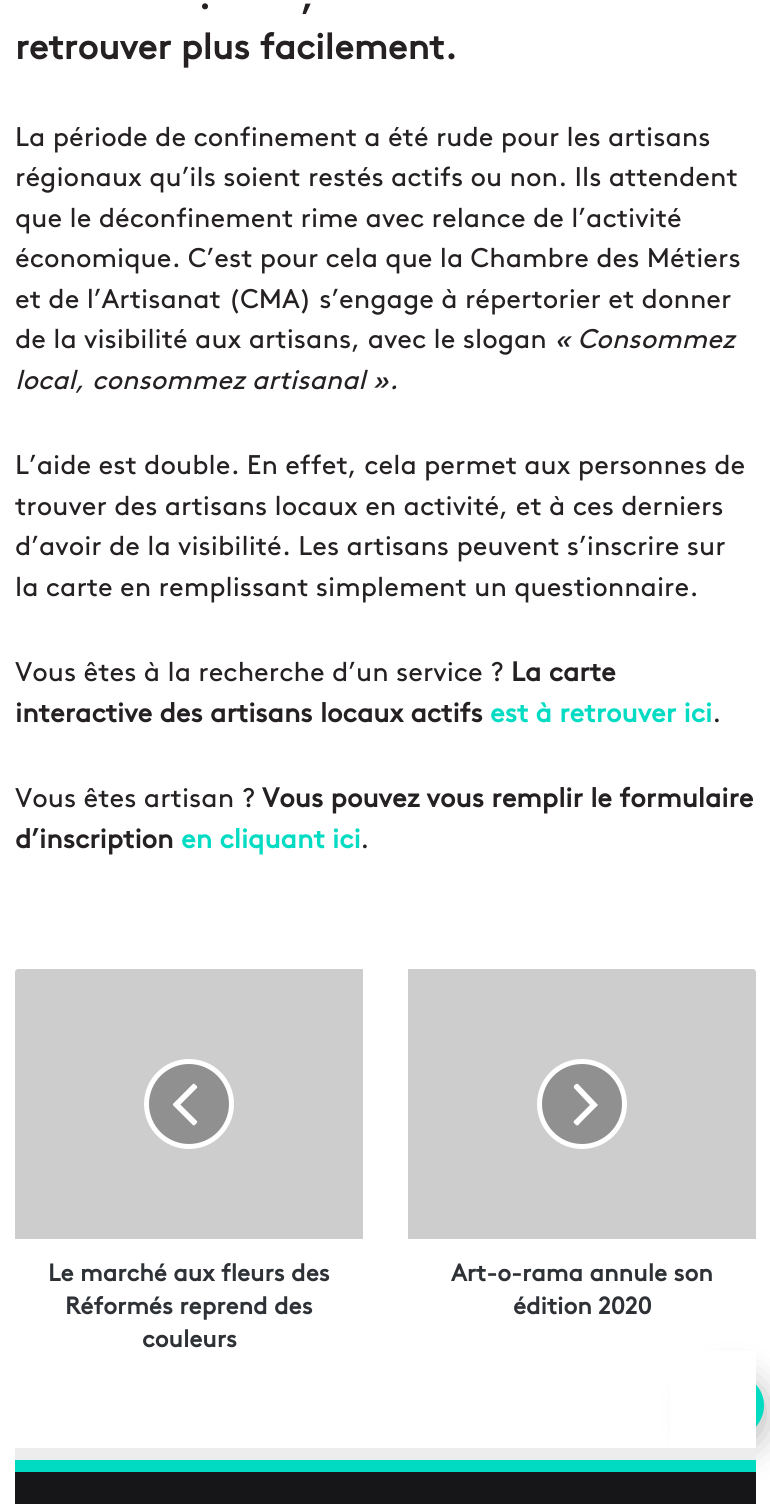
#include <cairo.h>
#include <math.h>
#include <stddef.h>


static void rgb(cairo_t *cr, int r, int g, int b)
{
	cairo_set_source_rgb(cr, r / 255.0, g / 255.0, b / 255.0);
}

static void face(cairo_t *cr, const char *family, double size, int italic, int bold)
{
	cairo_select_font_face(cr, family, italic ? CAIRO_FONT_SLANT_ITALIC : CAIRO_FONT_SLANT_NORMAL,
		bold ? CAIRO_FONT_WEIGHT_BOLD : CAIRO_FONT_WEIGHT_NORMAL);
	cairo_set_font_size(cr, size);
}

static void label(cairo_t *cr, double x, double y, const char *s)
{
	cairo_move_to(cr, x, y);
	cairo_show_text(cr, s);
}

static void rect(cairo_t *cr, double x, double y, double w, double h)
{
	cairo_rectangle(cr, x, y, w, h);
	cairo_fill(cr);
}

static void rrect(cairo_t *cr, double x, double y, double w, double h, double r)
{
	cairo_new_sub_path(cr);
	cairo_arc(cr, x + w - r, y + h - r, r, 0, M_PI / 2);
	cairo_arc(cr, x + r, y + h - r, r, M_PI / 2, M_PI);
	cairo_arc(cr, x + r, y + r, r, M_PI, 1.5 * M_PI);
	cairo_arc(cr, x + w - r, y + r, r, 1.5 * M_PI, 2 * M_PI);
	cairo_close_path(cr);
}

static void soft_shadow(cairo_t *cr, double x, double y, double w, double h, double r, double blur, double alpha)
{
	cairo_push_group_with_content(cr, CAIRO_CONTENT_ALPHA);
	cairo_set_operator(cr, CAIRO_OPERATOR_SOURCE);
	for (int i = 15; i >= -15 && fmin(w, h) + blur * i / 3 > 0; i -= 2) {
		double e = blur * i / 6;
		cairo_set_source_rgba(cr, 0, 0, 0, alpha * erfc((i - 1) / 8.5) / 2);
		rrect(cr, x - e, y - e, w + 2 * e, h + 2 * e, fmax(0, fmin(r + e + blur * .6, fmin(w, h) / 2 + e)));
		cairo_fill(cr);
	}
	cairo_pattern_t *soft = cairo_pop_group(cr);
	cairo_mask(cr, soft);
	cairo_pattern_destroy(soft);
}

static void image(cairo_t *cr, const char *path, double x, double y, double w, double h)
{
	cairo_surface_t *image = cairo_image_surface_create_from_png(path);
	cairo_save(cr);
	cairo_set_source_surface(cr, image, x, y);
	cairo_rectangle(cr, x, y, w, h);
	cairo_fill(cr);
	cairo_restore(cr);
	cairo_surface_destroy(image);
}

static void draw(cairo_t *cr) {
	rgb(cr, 255, 255, 255);
	cairo_paint(cr);
	rgb(cr, 0, 0, 0);
	soft_shadow(cr, 701, 1382, 63, 63, 31.5, 19, 0.3);
	rgb(cr, 0, 219, 194);
	cairo_arc(cr, 732.5, 1405.5, 31.5, 0, 2 * M_PI);
	cairo_fill(cr);
	rgb(cr, 255, 255, 255);
	rect(cr, 670, 1351, 86, 97);
	face(cr, "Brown", 36, 0, 1);
	rgb(cr, 37, 33, 34);
	label(cr, 198, 9, ".");
	label(cr, 301, 9, ",");
	label(cr, 15, 59, "retrouver plus facilement.");
	face(cr, "Brown", 27, 0, 0);
	label(cr, 15, 146, "La période de confinement a été rude pour les artisans");
	label(cr, 15, 186, "régionaux qu’ils soient restés actifs ou non. Ils attendent");
	label(cr, 15, 227, "que le déconfinement rime avec relance de l’activité");
	label(cr, 15, 267, "économique. C’est pour cela que la Chambre des Métiers");
	label(cr, 15, 308, "et de l’Artisanat (CMA) s’engage à répertorier et donner");
	label(cr, 15, 348, "de la visibilité aux artisans, avec le slogan");
	face(cr, "Brown", 27, 1, 0);
	label(cr, 554, 348, "« Consommez");
	label(cr, 15, 389, "local, consommez artisanal ».");
	face(cr, "Brown", 27, 0, 0);
	label(cr, 15, 474, "L’aide est double. En effet, cela permet aux personnes de");
	label(cr, 15, 515, "trouver des artisans locaux en activité, et à ces derniers");
	label(cr, 15, 555, "d’avoir de la visibilité. Les artisans peuvent s’inscrire sur");
	label(cr, 15, 596, "la carte en remplissant simplement un questionnaire.");
	label(cr, 15, 681, "Vous êtes à la recherche d’un service ?");
	face(cr, "Brown", 27, 0, 1);
	label(cr, 511, 681, "La carte");
	label(cr, 15, 722, "interactive des artisans locaux actifs");
	rgb(cr, 3, 219, 195);
	label(cr, 490, 722, "est à retrouver ici");
	face(cr, "Brown", 27, 0, 0);
	rgb(cr, 37, 33, 34);
	label(cr, 712, 722, ".");
	label(cr, 15, 807, "Vous êtes artisan ?");
	face(cr, "Brown", 27, 0, 1);
	label(cr, 262, 807, "Vous pouvez vous remplir le formulaire");
	label(cr, 15, 848, "d’inscription");
	rgb(cr, 3, 219, 195);
	label(cr, 181, 848, "en cliquant ici");
	face(cr, "Brown", 27, 0, 0);
	rgb(cr, 37, 33, 34);
	label(cr, 360, 848, ".");
	rgb(cr, 205, 205, 205);
	cairo_new_path(cr);
	cairo_move_to(cr, 18, 969);
	cairo_line_to(cr, 363, 969);
	cairo_line_to(cr, 363, 1239);
	cairo_line_to(cr, 15, 1239);
	cairo_line_to(cr, 15, 972);
	cairo_curve_to(cr, 15, 970.5, 16.5, 969, 18, 969);
	cairo_close_path(cr);
	cairo_fill(cr);
	rgb(cr, 144, 144, 144);
	cairo_arc(cr, 189, 1104, 42.5, 0, 2 * M_PI);
	cairo_fill_preserve(cr);
	rgb(cr, 255, 255, 255);
	cairo_set_line_width(cr, 5);
	cairo_stroke(cr);
	image(cr, "image0.png", 172, 1083, 26, 43);
	face(cr, "Brown", 24, 0, 1);
	rgb(cr, 46, 49, 54);
	label(cr, 48, 1281, "Le marché aux fleurs des");
	label(cr, 65, 1314, "Réformés reprend des");
	label(cr, 142, 1347, "couleurs");
	rgb(cr, 205, 205, 205);
	cairo_new_path(cr);
	cairo_move_to(cr, 408, 969);
	cairo_line_to(cr, 753, 969);
	cairo_curve_to(cr, 754.5, 969, 756, 970.5, 756, 972);
	cairo_line_to(cr, 756, 1239);
	cairo_line_to(cr, 408, 1239);
	cairo_close_path(cr);
	cairo_fill(cr);
	rgb(cr, 144, 144, 144);
	cairo_arc(cr, 582, 1104, 42.5, 0, 2 * M_PI);
	cairo_fill_preserve(cr);
	rgb(cr, 255, 255, 255);
	cairo_stroke(cr);
	cairo_new_path(cr);
	cairo_move_to(cr, 598, 1105);
	cairo_line_to(cr, 581, 1122);
	cairo_curve_to(cr, 578, 1125, 578, 1127, 575, 1124);
	cairo_curve_to(cr, 574, 1123, 573, 1122, 574, 1121);
	cairo_line_to(cr, 590, 1105);
	cairo_line_to(cr, 574, 1088);
	cairo_curve_to(cr, 573, 1086, 576, 1083, 578, 1084);
	cairo_close_path(cr);
	cairo_fill(cr);
	rgb(cr, 46, 49, 54);
	label(cr, 451, 1281, "Art-o-rama annule son");
	label(cr, 513, 1314, "édition 2020");
	rgb(cr, 237, 237, 237);
	rect(cr, 15, 1448, 741, 12);
	rgb(cr, 0, 219, 194);
	rect(cr, 15, 1460, 741, 12);
	rgb(cr, 22, 22, 25);
	rect(cr, 15, 1472, 741, 32);
}

int main(void) {
	cairo_surface_t *surface = cairo_image_surface_create(CAIRO_FORMAT_RGB24, 770, 1504);
	cairo_t *cr = cairo_create(surface);
	cairo_font_options_t *options = cairo_font_options_create();
	cairo_font_options_set_hint_metrics(options, CAIRO_HINT_METRICS_OFF);
	cairo_font_options_set_hint_style(options, CAIRO_HINT_STYLE_NONE);
	cairo_set_font_options(cr, options);
	cairo_set_miter_limit(cr, 4);
	draw(cr);
	cairo_surface_write_to_png(surface, "render.png");
	cairo_font_options_destroy(options);
	cairo_destroy(cr);
	cairo_surface_destroy(surface);
	return 0;
}
